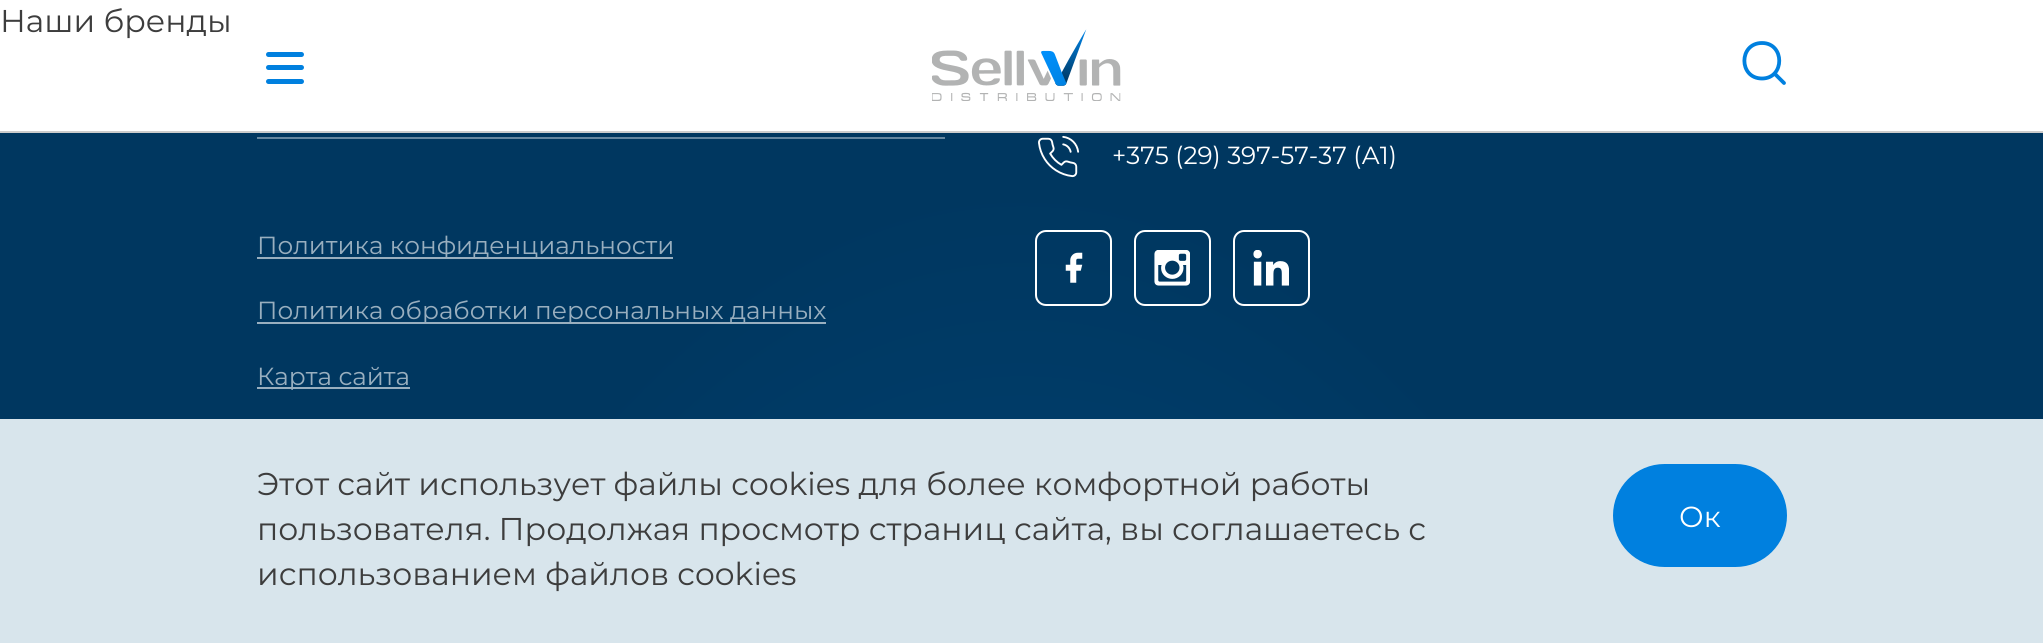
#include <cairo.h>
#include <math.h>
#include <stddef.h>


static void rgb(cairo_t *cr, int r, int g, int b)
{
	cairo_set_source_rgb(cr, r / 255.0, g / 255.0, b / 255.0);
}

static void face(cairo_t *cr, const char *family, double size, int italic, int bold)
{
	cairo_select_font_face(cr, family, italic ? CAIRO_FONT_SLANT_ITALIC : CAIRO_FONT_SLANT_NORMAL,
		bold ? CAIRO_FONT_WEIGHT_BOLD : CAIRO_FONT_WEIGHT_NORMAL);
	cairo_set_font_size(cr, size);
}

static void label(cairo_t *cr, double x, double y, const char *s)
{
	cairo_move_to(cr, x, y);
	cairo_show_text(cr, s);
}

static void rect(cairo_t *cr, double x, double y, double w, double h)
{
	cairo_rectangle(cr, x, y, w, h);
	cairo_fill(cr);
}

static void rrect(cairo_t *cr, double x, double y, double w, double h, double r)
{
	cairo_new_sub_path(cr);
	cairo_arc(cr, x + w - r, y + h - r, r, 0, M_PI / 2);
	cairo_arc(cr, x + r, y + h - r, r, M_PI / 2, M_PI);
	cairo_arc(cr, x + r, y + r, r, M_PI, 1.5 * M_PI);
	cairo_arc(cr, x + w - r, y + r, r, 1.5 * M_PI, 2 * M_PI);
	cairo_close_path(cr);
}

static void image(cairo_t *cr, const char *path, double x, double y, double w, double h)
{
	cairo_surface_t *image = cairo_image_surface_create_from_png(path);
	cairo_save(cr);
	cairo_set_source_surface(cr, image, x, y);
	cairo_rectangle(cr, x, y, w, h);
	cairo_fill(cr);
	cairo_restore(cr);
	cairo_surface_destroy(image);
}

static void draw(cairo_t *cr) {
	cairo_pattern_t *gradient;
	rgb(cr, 255, 255, 255);
	cairo_paint(cr);
	face(cr, "Montserrat", 31.5, 0, 0);
	rgb(cr, 61, 61, 61);
	label(cr, 0, 32, "Наши бренды");
	rgb(cr, 204, 204, 204);
	rect(cr, 0, 131, 2043, 2);
	rgb(cr, 0, 128, 223);
	rrect(cr, 266, 65, 38, 5, 2.5);
	cairo_fill(cr);
	rrect(cr, 266, 52, 38, 5, 2.5);
	cairo_fill(cr);
	rrect(cr, 266, 79, 38, 5, 2.5);
	cairo_fill(cr);
	image(cr, "image0.png", 932, 29, 189, 72);
	cairo_new_path(cr);
	cairo_move_to(cr, 1762, 78.5);
	cairo_curve_to(cr, 1785, 78.5, 1785, 43, 1762, 43);
	cairo_curve_to(cr, 1738.5, 43, 1738.5, 78.5, 1762, 78.5);
	cairo_close_path(cr);
	cairo_move_to(cr, 1784, 83);
	cairo_line_to(cr, 1774.5, 73.5);
	cairo_set_line_width(cr, 3.8);
	cairo_set_line_cap(cr, CAIRO_LINE_CAP_ROUND);
	cairo_set_line_join(cr, CAIRO_LINE_JOIN_ROUND);
	cairo_stroke(cr);
	gradient = cairo_pattern_create_radial(0, 0, 0, 0, 0, 1);
	cairo_pattern_set_matrix(gradient, &(cairo_matrix_t){1.0 / 1150, 0, 0, 1.0 / 3235, -1.0 * 1022 / 1150, -1.0 * 3419 / 3235});
	cairo_pattern_add_color_stop_rgba(gradient, 0, 0, 0.443, 0.776, 1);
	cairo_pattern_add_color_stop_rgba(gradient, 1, 0, 0.216, 0.376, 1);
	cairo_set_source(cr, gradient);
	cairo_pattern_destroy(gradient);
	rect(cr, 0, 133, 2043, 286);
	gradient = cairo_pattern_create_radial(0, 0, 0, 0, 0, 1);
	cairo_pattern_set_matrix(gradient, &(cairo_matrix_t){1.0 / 1150, 0, 0, 1.0 / 3235, -1.0 * 1022 / 1150, -1.0 * 3419 / 3235});
	cairo_pattern_add_color_stop_rgba(gradient, 0, 0.6, 0.776, 0.91, 1);
	cairo_pattern_add_color_stop_rgba(gradient, 1, 0.6, 0.686, 0.749, 1);
	cairo_set_source(cr, gradient);
	cairo_pattern_destroy(gradient);
	rect(cr, 257, 322, 569, 2);
	image(cr, "image1.png", 1038, 135, 42, 43);
	face(cr, "Montserrat", 24.75, 0, 0);
	rgb(cr, 255, 255, 255);
	label(cr, 1112, 164, "+375 (29) 397-57-37 (А1)");
	rrect(cr, 1036, 231, 75, 74, 10);
	cairo_set_line_width(cr, 2);
	cairo_set_line_cap(cr, CAIRO_LINE_CAP_BUTT);
	cairo_set_line_join(cr, CAIRO_LINE_JOIN_MITER);
	cairo_stroke(cr);
	image(cr, "image2.png", 1065, 252, 18, 31);
	rrect(cr, 1135, 231, 75, 74, 10);
	cairo_stroke(cr);
	image(cr, "image3.png", 1154, 250, 36, 36);
	rrect(cr, 1234, 231, 75, 74, 10);
	cairo_stroke(cr);
	image(cr, "image4.png", 1253, 250, 36, 36);
	rgb(cr, 102, 135, 160);
	rect(cr, 257, 137, 688, 2);
	rgb(cr, 153, 175, 191);
	rect(cr, 257, 257, 416, 2);
	label(cr, 257, 254, "Политика конфиденциальности");
	label(cr, 257, 319, "Политика обработки персональных данных");
	rect(cr, 257, 387, 153, 2);
	label(cr, 257, 385, "Карта сайта");
	rgb(cr, 216, 229, 236);
	rect(cr, 0, 419, 2043, 224);
	face(cr, "Montserrat", 31.5, 0, 0);
	rgb(cr, 61, 61, 61);
	label(cr, 257, 495, "Этот сайт использует файлы cookies для более комфортной работы");
	label(cr, 257, 540, "пользователя. Продолжая просмотр страниц сайта, вы соглашаетесь с");
	label(cr, 257, 585, "использованием файлов cookies");
	rgb(cr, 0, 128, 223);
	rrect(cr, 1614, 465, 172, 101, 50.5);
	cairo_fill_preserve(cr);
	cairo_stroke(cr);
	face(cr, "Montserrat", 29, 0, 0);
	rgb(cr, 255, 255, 255);
	label(cr, 1679, 527, "Ок");
}

int main(void) {
	cairo_surface_t *surface = cairo_image_surface_create(CAIRO_FORMAT_RGB24, 2043, 643);
	cairo_t *cr = cairo_create(surface);
	cairo_font_options_t *options = cairo_font_options_create();
	cairo_font_options_set_hint_metrics(options, CAIRO_HINT_METRICS_OFF);
	cairo_font_options_set_hint_style(options, CAIRO_HINT_STYLE_NONE);
	cairo_set_font_options(cr, options);
	cairo_set_miter_limit(cr, 4);
	draw(cr);
	cairo_surface_write_to_png(surface, "render.png");
	cairo_font_options_destroy(options);
	cairo_destroy(cr);
	cairo_surface_destroy(surface);
	return 0;
}
